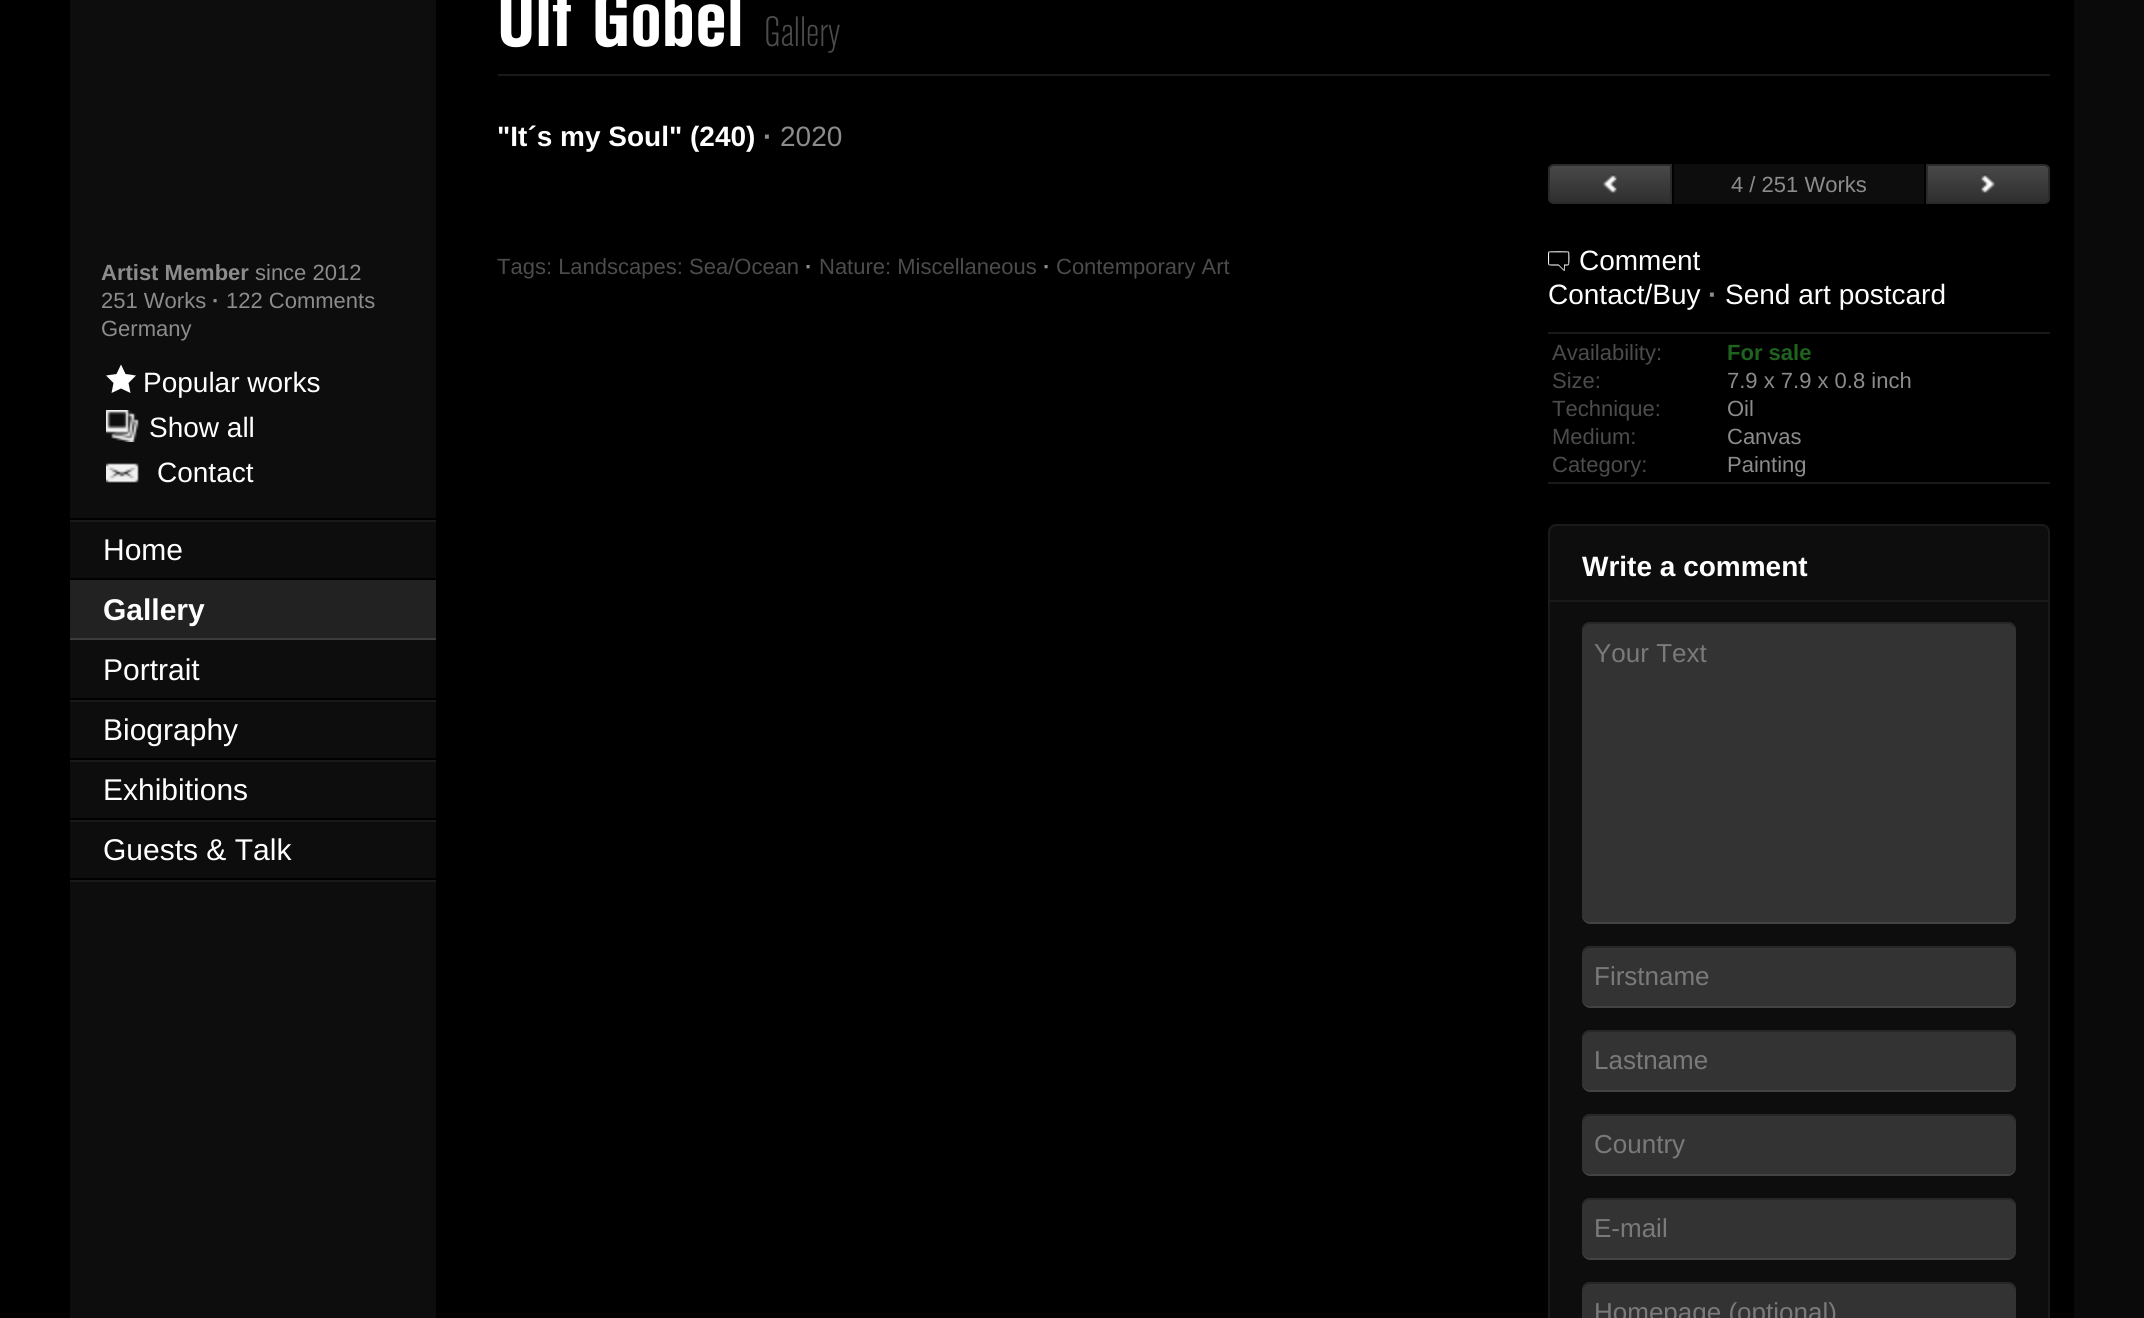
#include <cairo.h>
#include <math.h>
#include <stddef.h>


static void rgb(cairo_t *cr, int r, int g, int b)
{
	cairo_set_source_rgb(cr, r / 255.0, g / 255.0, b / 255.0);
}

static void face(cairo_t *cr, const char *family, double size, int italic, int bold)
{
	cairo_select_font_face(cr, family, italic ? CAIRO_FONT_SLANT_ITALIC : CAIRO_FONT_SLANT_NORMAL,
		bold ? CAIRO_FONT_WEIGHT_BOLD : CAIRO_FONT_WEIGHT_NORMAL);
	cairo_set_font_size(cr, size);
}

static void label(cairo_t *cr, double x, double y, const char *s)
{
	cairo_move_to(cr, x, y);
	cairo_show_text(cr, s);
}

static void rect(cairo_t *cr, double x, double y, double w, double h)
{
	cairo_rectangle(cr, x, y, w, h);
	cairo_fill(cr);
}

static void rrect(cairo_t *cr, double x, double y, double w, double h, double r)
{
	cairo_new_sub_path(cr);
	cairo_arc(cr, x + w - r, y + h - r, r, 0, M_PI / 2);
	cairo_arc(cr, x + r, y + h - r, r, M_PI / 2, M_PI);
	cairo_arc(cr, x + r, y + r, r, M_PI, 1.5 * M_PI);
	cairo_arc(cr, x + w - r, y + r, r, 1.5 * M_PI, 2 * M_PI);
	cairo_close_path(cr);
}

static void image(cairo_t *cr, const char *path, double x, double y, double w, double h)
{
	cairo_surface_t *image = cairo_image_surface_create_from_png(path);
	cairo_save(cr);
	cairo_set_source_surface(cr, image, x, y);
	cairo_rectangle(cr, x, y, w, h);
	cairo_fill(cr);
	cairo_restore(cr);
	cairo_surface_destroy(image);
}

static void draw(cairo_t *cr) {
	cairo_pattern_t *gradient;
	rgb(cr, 0, 0, 0);
	cairo_paint(cr);
	rgb(cr, 10, 10, 10);
	rect(cr, 2074, 0, 70, 1318);
	rgb(cr, 13, 13, 13);
	rect(cr, 70, 0, 366, 1318);
	face(cr, "Liberation Sans", 22, 0, 1);
	rgb(cr, 140, 140, 140);
	label(cr, 101, 280, "Artist Member");
	face(cr, "Liberation Sans", 22, 0, 0);
	label(cr, 255, 280, "since 2012");
	label(cr, 101, 308, "251 Works");
	face(cr, "Liberation Sans", 22, 0, 1);
	label(cr, 212, 308, "·");
	face(cr, "Liberation Sans", 22, 0, 0);
	label(cr, 226, 308, "122 Comments");
	label(cr, 101, 336, "Germany");
	rgb(cr, 25, 25, 25);
	rect(cr, 70, 520, 366, 2);
	rgb(cr, 0, 0, 0);
	rect(cr, 70, 518, 366, 2);
	rgb(cr, 255, 255, 255);
	cairo_new_path(cr);
	cairo_move_to(cr, 136, 375.5);
	cairo_line_to(cr, 125.5, 374);
	cairo_line_to(cr, 121, 364.5);
	cairo_line_to(cr, 116.5, 374);
	cairo_line_to(cr, 106, 375.5);
	cairo_line_to(cr, 113.5, 383);
	cairo_line_to(cr, 111.5, 393);
	cairo_line_to(cr, 121, 388.5);
	cairo_line_to(cr, 130.5, 393);
	cairo_line_to(cr, 128.5, 383);
	cairo_close_path(cr);
	cairo_fill(cr);
	face(cr, "Liberation Sans", 28, 0, 0);
	label(cr, 143, 392, "Popular works");
	image(cr, "image0.png", 106, 410, 33, 32);
	label(cr, 149, 437, "Show all");
	image(cr, "image1.png", 106, 463, 33, 21);
	label(cr, 157, 482, "Contact");
	rgb(cr, 0, 0, 0);
	rect(cr, 70, 578, 366, 2);
	face(cr, "Liberation Sans", 30, 0, 0);
	rgb(cr, 255, 255, 255);
	label(cr, 103, 560, "Home");
	rgb(cr, 34, 34, 34);
	rect(cr, 70, 580, 366, 58);
	rgb(cr, 60, 60, 60);
	rect(cr, 70, 638, 366, 2);
	face(cr, "Liberation Sans", 30, 0, 1);
	rgb(cr, 255, 255, 255);
	label(cr, 103, 620, "Gallery");
	rgb(cr, 25, 25, 25);
	rect(cr, 70, 700, 366, 2);
	rgb(cr, 0, 0, 0);
	rect(cr, 70, 698, 366, 2);
	face(cr, "Liberation Sans", 30, 0, 0);
	rgb(cr, 255, 255, 255);
	label(cr, 103, 680, "Portrait");
	rgb(cr, 25, 25, 25);
	rect(cr, 70, 760, 366, 2);
	rgb(cr, 0, 0, 0);
	rect(cr, 70, 758, 366, 2);
	rgb(cr, 255, 255, 255);
	label(cr, 103, 740, "Biography");
	rgb(cr, 25, 25, 25);
	rect(cr, 70, 820, 366, 2);
	rgb(cr, 0, 0, 0);
	rect(cr, 70, 818, 366, 2);
	rgb(cr, 255, 255, 255);
	label(cr, 103, 800, "Exhibitions");
	rgb(cr, 25, 25, 25);
	rect(cr, 70, 880, 366, 2);
	rgb(cr, 0, 0, 0);
	rect(cr, 70, 878, 366, 2);
	rgb(cr, 255, 255, 255);
	label(cr, 103, 860, "Guests & Talk");
	face(cr, "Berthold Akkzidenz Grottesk", 80, 0, 1);
	label(cr, 497, 46, "Ulf Göbel");
	face(cr, "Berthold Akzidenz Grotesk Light", 42, 0, 0);
	rgb(cr, 76, 76, 76);
	label(cr, 764, 46, "Gallery");
	rgb(cr, 25, 25, 25);
	rect(cr, 498, 74, 1552, 2);
	face(cr, "Liberation Sans", 28, 0, 1);
	rgb(cr, 255, 255, 255);
	label(cr, 497, 146, "\"It´s my Soul\" (240)");
	rgb(cr, 140, 140, 140);
	label(cr, 763, 146, "·");
	face(cr, "Liberation Sans", 28, 0, 0);
	label(cr, 780, 146, "2020");
	face(cr, "Liberation Sans", 22, 0, 0);
	rgb(cr, 76, 76, 76);
	label(cr, 497, 274, "Tags: Landscapes: Sea/Ocean");
	face(cr, "Liberation Sans", 22, 0, 1);
	rgb(cr, 140, 140, 140);
	label(cr, 805, 274, "·");
	face(cr, "Liberation Sans", 22, 0, 0);
	rgb(cr, 76, 76, 76);
	label(cr, 819, 274, "Nature: Miscellaneous");
	face(cr, "Liberation Sans", 22, 0, 1);
	rgb(cr, 140, 140, 140);
	label(cr, 1043, 274, "·");
	face(cr, "Liberation Sans", 22, 0, 0);
	rgb(cr, 76, 76, 76);
	label(cr, 1056, 274, "Contemporary Art");
	cairo_save(cr);
	cairo_new_path(cr);
	cairo_move_to(cr, 1554, 164);
	cairo_line_to(cr, 1672, 164);
	cairo_line_to(cr, 1672, 204);
	cairo_line_to(cr, 1554, 204);
	cairo_curve_to(cr, 1550.5, 204, 1548, 201.5, 1548, 198);
	cairo_line_to(cr, 1548, 170);
	cairo_curve_to(cr, 1548, 166.5, 1550.5, 164, 1554, 164);
	cairo_close_path(cr);
	cairo_clip(cr);
	gradient = cairo_pattern_create_linear(1610, 166, 1610, 202);
	cairo_pattern_add_color_stop_rgba(gradient, 0, 0.282, 0.282, 0.282, 1);
	cairo_pattern_add_color_stop_rgba(gradient, 1, 0.184, 0.184, 0.184, 1);
	cairo_set_source(cr, gradient);
	cairo_pattern_destroy(gradient);
	rect(cr, 1548, 166, 122, 36);
	cairo_restore(cr);
	cairo_new_path(cr);
	cairo_move_to(cr, 1554, 165);
	cairo_line_to(cr, 1671, 165);
	cairo_line_to(cr, 1671, 203);
	cairo_line_to(cr, 1554, 203);
	cairo_curve_to(cr, 1551, 203, 1549, 201, 1549, 198);
	cairo_line_to(cr, 1549, 170);
	cairo_curve_to(cr, 1549, 167, 1551, 165, 1554, 165);
	cairo_close_path(cr);
	rgb(cr, 42, 42, 42);
	cairo_stroke(cr);
	image(cr, "image2.png", 1603, 174, 14, 19);
	rgb(cr, 13, 13, 13);
	rect(cr, 1674, 164, 250, 40);
	rgb(cr, 140, 140, 140);
	label(cr, 1731, 192, "4 / 251 Works");
	cairo_save(cr);
	cairo_new_path(cr);
	cairo_move_to(cr, 1926, 164);
	cairo_line_to(cr, 2044, 164);
	cairo_curve_to(cr, 2047.5, 164, 2050, 166.5, 2050, 170);
	cairo_line_to(cr, 2050, 198);
	cairo_curve_to(cr, 2050, 201.5, 2047.5, 204, 2044, 204);
	cairo_line_to(cr, 1926, 204);
	cairo_close_path(cr);
	cairo_clip(cr);
	gradient = cairo_pattern_create_linear(1988, 166, 1988, 202);
	cairo_pattern_add_color_stop_rgba(gradient, 0, 0.282, 0.282, 0.282, 1);
	cairo_pattern_add_color_stop_rgba(gradient, 1, 0.184, 0.184, 0.184, 1);
	cairo_set_source(cr, gradient);
	cairo_pattern_destroy(gradient);
	rect(cr, 1928, 166, 122, 36);
	cairo_restore(cr);
	cairo_new_path(cr);
	cairo_move_to(cr, 1927, 165);
	cairo_line_to(cr, 2044, 165);
	cairo_curve_to(cr, 2047, 165, 2049, 167, 2049, 170);
	cairo_line_to(cr, 2049, 198);
	cairo_curve_to(cr, 2049, 201, 2047, 203, 2044, 203);
	cairo_line_to(cr, 1927, 203);
	cairo_close_path(cr);
	rgb(cr, 42, 42, 42);
	cairo_stroke(cr);
	image(cr, "image3.png", 1981, 174, 14, 19);
	image(cr, "image4.png", 1548, 251, 22, 21);
	face(cr, "Liberation Sans", 28, 0, 0);
	rgb(cr, 255, 255, 255);
	label(cr, 1579, 270, "Comment");
	label(cr, 1548, 304, "Contact/Buy");
	face(cr, "Liberation Sans", 28, 0, 1);
	rgb(cr, 140, 140, 140);
	label(cr, 1708, 304, "·");
	face(cr, "Liberation Sans", 28, 0, 0);
	rgb(cr, 255, 255, 255);
	label(cr, 1725, 304, "Send art postcard");
	rgb(cr, 25, 25, 25);
	rect(cr, 1548, 332, 502, 2);
	rect(cr, 1548, 482, 502, 2);
	face(cr, "Liberation Sans", 22, 0, 0);
	rgb(cr, 76, 76, 76);
	label(cr, 1552, 360, "Availability:");
	face(cr, "Liberation Sans", 22, 0, 1);
	rgb(cr, 30, 99, 30);
	label(cr, 1727, 360, "For sale");
	face(cr, "Liberation Sans", 22, 0, 0);
	rgb(cr, 76, 76, 76);
	label(cr, 1552, 388, "Size:");
	rgb(cr, 140, 140, 140);
	label(cr, 1727, 388, "7.9 x 7.9 x 0.8 inch");
	rgb(cr, 76, 76, 76);
	label(cr, 1552, 416, "Technique:");
	rgb(cr, 140, 140, 140);
	label(cr, 1727, 416, "Oil");
	rgb(cr, 76, 76, 76);
	label(cr, 1552, 444, "Medium:");
	rgb(cr, 140, 140, 140);
	label(cr, 1727, 444, "Canvas");
	rgb(cr, 76, 76, 76);
	label(cr, 1552, 472, "Category:");
	rgb(cr, 140, 140, 140);
	label(cr, 1727, 472, "Painting");
	rgb(cr, 13, 13, 13);
	rrect(cr, 1549, 525, 500, 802, 7);
	cairo_fill_preserve(cr);
	rgb(cr, 26, 26, 26);
	cairo_stroke(cr);
	face(cr, "Liberation Sans", 28, 0, 1);
	rgb(cr, 255, 255, 255);
	label(cr, 1582, 576, "Write a comment");
	rgb(cr, 25, 25, 25);
	rect(cr, 1550, 600, 498, 2);
	rgb(cr, 66, 66, 66);
	cairo_new_path(cr);
	cairo_move_to(cr, 1582, 914);
	cairo_line_to(cr, 1582, 916);
	cairo_curve_to(cr, 1582, 920, 1586, 924, 1590, 924);
	cairo_line_to(cr, 2008, 924);
	cairo_curve_to(cr, 2012, 924, 2016, 920, 2016, 916);
	cairo_line_to(cr, 2016, 914);
	cairo_curve_to(cr, 2016, 918, 2012, 922, 2008, 922);
	cairo_line_to(cr, 1590, 922);
	cairo_curve_to(cr, 1586, 922, 1582, 918, 1582, 914);
	cairo_close_path(cr);
	cairo_fill(cr);
	rgb(cr, 51, 51, 51);
	rrect(cr, 1582, 622, 434, 300, 8);
	cairo_fill(cr);
	rgb(cr, 39, 39, 39);
	cairo_new_path(cr);
	cairo_move_to(cr, 1590, 624);
	cairo_line_to(cr, 2008, 624);
	cairo_curve_to(cr, 2012, 624, 2016, 628, 2016, 632);
	cairo_line_to(cr, 2016, 630);
	cairo_curve_to(cr, 2016, 626, 2012, 622, 2008, 622);
	cairo_line_to(cr, 1590, 622);
	cairo_curve_to(cr, 1586, 622, 1582, 626, 1582, 630);
	cairo_line_to(cr, 1582, 632);
	cairo_curve_to(cr, 1582, 628, 1586, 624, 1590, 624);
	cairo_close_path(cr);
	cairo_fill(cr);
	face(cr, "Liberation Sans", 26, 0, 0);
	rgb(cr, 122, 122, 122);
	label(cr, 1594, 662, "Your Text");
	rgb(cr, 66, 66, 66);
	cairo_new_path(cr);
	cairo_move_to(cr, 1582, 998);
	cairo_line_to(cr, 1582, 1000);
	cairo_curve_to(cr, 1582, 1004, 1586, 1008, 1590, 1008);
	cairo_line_to(cr, 2008, 1008);
	cairo_curve_to(cr, 2012, 1008, 2016, 1004, 2016, 1000);
	cairo_line_to(cr, 2016, 998);
	cairo_curve_to(cr, 2016, 1002, 2012, 1006, 2008, 1006);
	cairo_line_to(cr, 1590, 1006);
	cairo_curve_to(cr, 1586, 1006, 1582, 1002, 1582, 998);
	cairo_close_path(cr);
	cairo_fill(cr);
	rgb(cr, 51, 51, 51);
	rrect(cr, 1582, 946, 434, 60, 8);
	cairo_fill(cr);
	rgb(cr, 39, 39, 39);
	cairo_new_path(cr);
	cairo_move_to(cr, 1590, 948);
	cairo_line_to(cr, 2008, 948);
	cairo_curve_to(cr, 2012, 948, 2016, 952, 2016, 956);
	cairo_line_to(cr, 2016, 954);
	cairo_curve_to(cr, 2016, 950, 2012, 946, 2008, 946);
	cairo_line_to(cr, 1590, 946);
	cairo_curve_to(cr, 1586, 946, 1582, 950, 1582, 954);
	cairo_line_to(cr, 1582, 956);
	cairo_curve_to(cr, 1582, 952, 1586, 948, 1590, 948);
	cairo_close_path(cr);
	cairo_fill(cr);
	rgb(cr, 122, 122, 122);
	label(cr, 1594, 985, "Firstname");
	rgb(cr, 66, 66, 66);
	cairo_new_path(cr);
	cairo_move_to(cr, 1582, 1082);
	cairo_line_to(cr, 1582, 1084);
	cairo_curve_to(cr, 1582, 1088, 1586, 1092, 1590, 1092);
	cairo_line_to(cr, 2008, 1092);
	cairo_curve_to(cr, 2012, 1092, 2016, 1088, 2016, 1084);
	cairo_line_to(cr, 2016, 1082);
	cairo_curve_to(cr, 2016, 1086, 2012, 1090, 2008, 1090);
	cairo_line_to(cr, 1590, 1090);
	cairo_curve_to(cr, 1586, 1090, 1582, 1086, 1582, 1082);
	cairo_close_path(cr);
	cairo_fill(cr);
	rgb(cr, 51, 51, 51);
	rrect(cr, 1582, 1030, 434, 60, 8);
	cairo_fill(cr);
	rgb(cr, 39, 39, 39);
	cairo_new_path(cr);
	cairo_move_to(cr, 1590, 1032);
	cairo_line_to(cr, 2008, 1032);
	cairo_curve_to(cr, 2012, 1032, 2016, 1036, 2016, 1040);
	cairo_line_to(cr, 2016, 1038);
	cairo_curve_to(cr, 2016, 1034, 2012, 1030, 2008, 1030);
	cairo_line_to(cr, 1590, 1030);
	cairo_curve_to(cr, 1586, 1030, 1582, 1034, 1582, 1038);
	cairo_line_to(cr, 1582, 1040);
	cairo_curve_to(cr, 1582, 1036, 1586, 1032, 1590, 1032);
	cairo_close_path(cr);
	cairo_fill(cr);
	rgb(cr, 122, 122, 122);
	label(cr, 1594, 1069, "Lastname");
	rgb(cr, 66, 66, 66);
	cairo_new_path(cr);
	cairo_move_to(cr, 1582, 1166);
	cairo_line_to(cr, 1582, 1168);
	cairo_curve_to(cr, 1582, 1172, 1586, 1176, 1590, 1176);
	cairo_line_to(cr, 2008, 1176);
	cairo_curve_to(cr, 2012, 1176, 2016, 1172, 2016, 1168);
	cairo_line_to(cr, 2016, 1166);
	cairo_curve_to(cr, 2016, 1170, 2012, 1174, 2008, 1174);
	cairo_line_to(cr, 1590, 1174);
	cairo_curve_to(cr, 1586, 1174, 1582, 1170, 1582, 1166);
	cairo_close_path(cr);
	cairo_fill(cr);
	rgb(cr, 51, 51, 51);
	rrect(cr, 1582, 1114, 434, 60, 8);
	cairo_fill(cr);
	rgb(cr, 39, 39, 39);
	cairo_new_path(cr);
	cairo_move_to(cr, 1590, 1116);
	cairo_line_to(cr, 2008, 1116);
	cairo_curve_to(cr, 2012, 1116, 2016, 1120, 2016, 1124);
	cairo_line_to(cr, 2016, 1122);
	cairo_curve_to(cr, 2016, 1118, 2012, 1114, 2008, 1114);
	cairo_line_to(cr, 1590, 1114);
	cairo_curve_to(cr, 1586, 1114, 1582, 1118, 1582, 1122);
	cairo_line_to(cr, 1582, 1124);
	cairo_curve_to(cr, 1582, 1120, 1586, 1116, 1590, 1116);
	cairo_close_path(cr);
	cairo_fill(cr);
	rgb(cr, 122, 122, 122);
	label(cr, 1594, 1153, "Country");
	rgb(cr, 66, 66, 66);
	cairo_new_path(cr);
	cairo_move_to(cr, 1582, 1250);
	cairo_line_to(cr, 1582, 1252);
	cairo_curve_to(cr, 1582, 1256, 1586, 1260, 1590, 1260);
	cairo_line_to(cr, 2008, 1260);
	cairo_curve_to(cr, 2012, 1260, 2016, 1256, 2016, 1252);
	cairo_line_to(cr, 2016, 1250);
	cairo_curve_to(cr, 2016, 1254, 2012, 1258, 2008, 1258);
	cairo_line_to(cr, 1590, 1258);
	cairo_curve_to(cr, 1586, 1258, 1582, 1254, 1582, 1250);
	cairo_close_path(cr);
	cairo_fill(cr);
	rgb(cr, 51, 51, 51);
	rrect(cr, 1582, 1198, 434, 60, 8);
	cairo_fill(cr);
	rgb(cr, 39, 39, 39);
	cairo_new_path(cr);
	cairo_move_to(cr, 1590, 1200);
	cairo_line_to(cr, 2008, 1200);
	cairo_curve_to(cr, 2012, 1200, 2016, 1204, 2016, 1208);
	cairo_line_to(cr, 2016, 1206);
	cairo_curve_to(cr, 2016, 1202, 2012, 1198, 2008, 1198);
	cairo_line_to(cr, 1590, 1198);
	cairo_curve_to(cr, 1586, 1198, 1582, 1202, 1582, 1206);
	cairo_line_to(cr, 1582, 1208);
	cairo_curve_to(cr, 1582, 1204, 1586, 1200, 1590, 1200);
	cairo_close_path(cr);
	cairo_fill(cr);
	rgb(cr, 122, 122, 122);
	label(cr, 1594, 1237, "E-mail");
	rgb(cr, 51, 51, 51);
	rrect(cr, 1582, 1282, 434, 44, 8);
	cairo_fill(cr);
	rgb(cr, 39, 39, 39);
	cairo_new_path(cr);
	cairo_move_to(cr, 1590, 1284);
	cairo_line_to(cr, 2008, 1284);
	cairo_curve_to(cr, 2012, 1284, 2016, 1288, 2016, 1292);
	cairo_line_to(cr, 2016, 1290);
	cairo_curve_to(cr, 2016, 1286, 2012, 1282, 2008, 1282);
	cairo_line_to(cr, 1590, 1282);
	cairo_curve_to(cr, 1586, 1282, 1582, 1286, 1582, 1290);
	cairo_line_to(cr, 1582, 1292);
	cairo_curve_to(cr, 1582, 1288, 1586, 1284, 1590, 1284);
	cairo_close_path(cr);
	cairo_fill(cr);
	rgb(cr, 122, 122, 122);
	label(cr, 1594, 1321, "Homepage (optional)");
}

int main(void) {
	cairo_surface_t *surface = cairo_image_surface_create(CAIRO_FORMAT_RGB24, 2144, 1318);
	cairo_t *cr = cairo_create(surface);
	cairo_font_options_t *options = cairo_font_options_create();
	cairo_font_options_set_hint_metrics(options, CAIRO_HINT_METRICS_OFF);
	cairo_font_options_set_hint_style(options, CAIRO_HINT_STYLE_NONE);
	cairo_set_font_options(cr, options);
	cairo_set_miter_limit(cr, 4);
	draw(cr);
	cairo_surface_write_to_png(surface, "render.png");
	cairo_font_options_destroy(options);
	cairo_destroy(cr);
	cairo_surface_destroy(surface);
	return 0;
}
